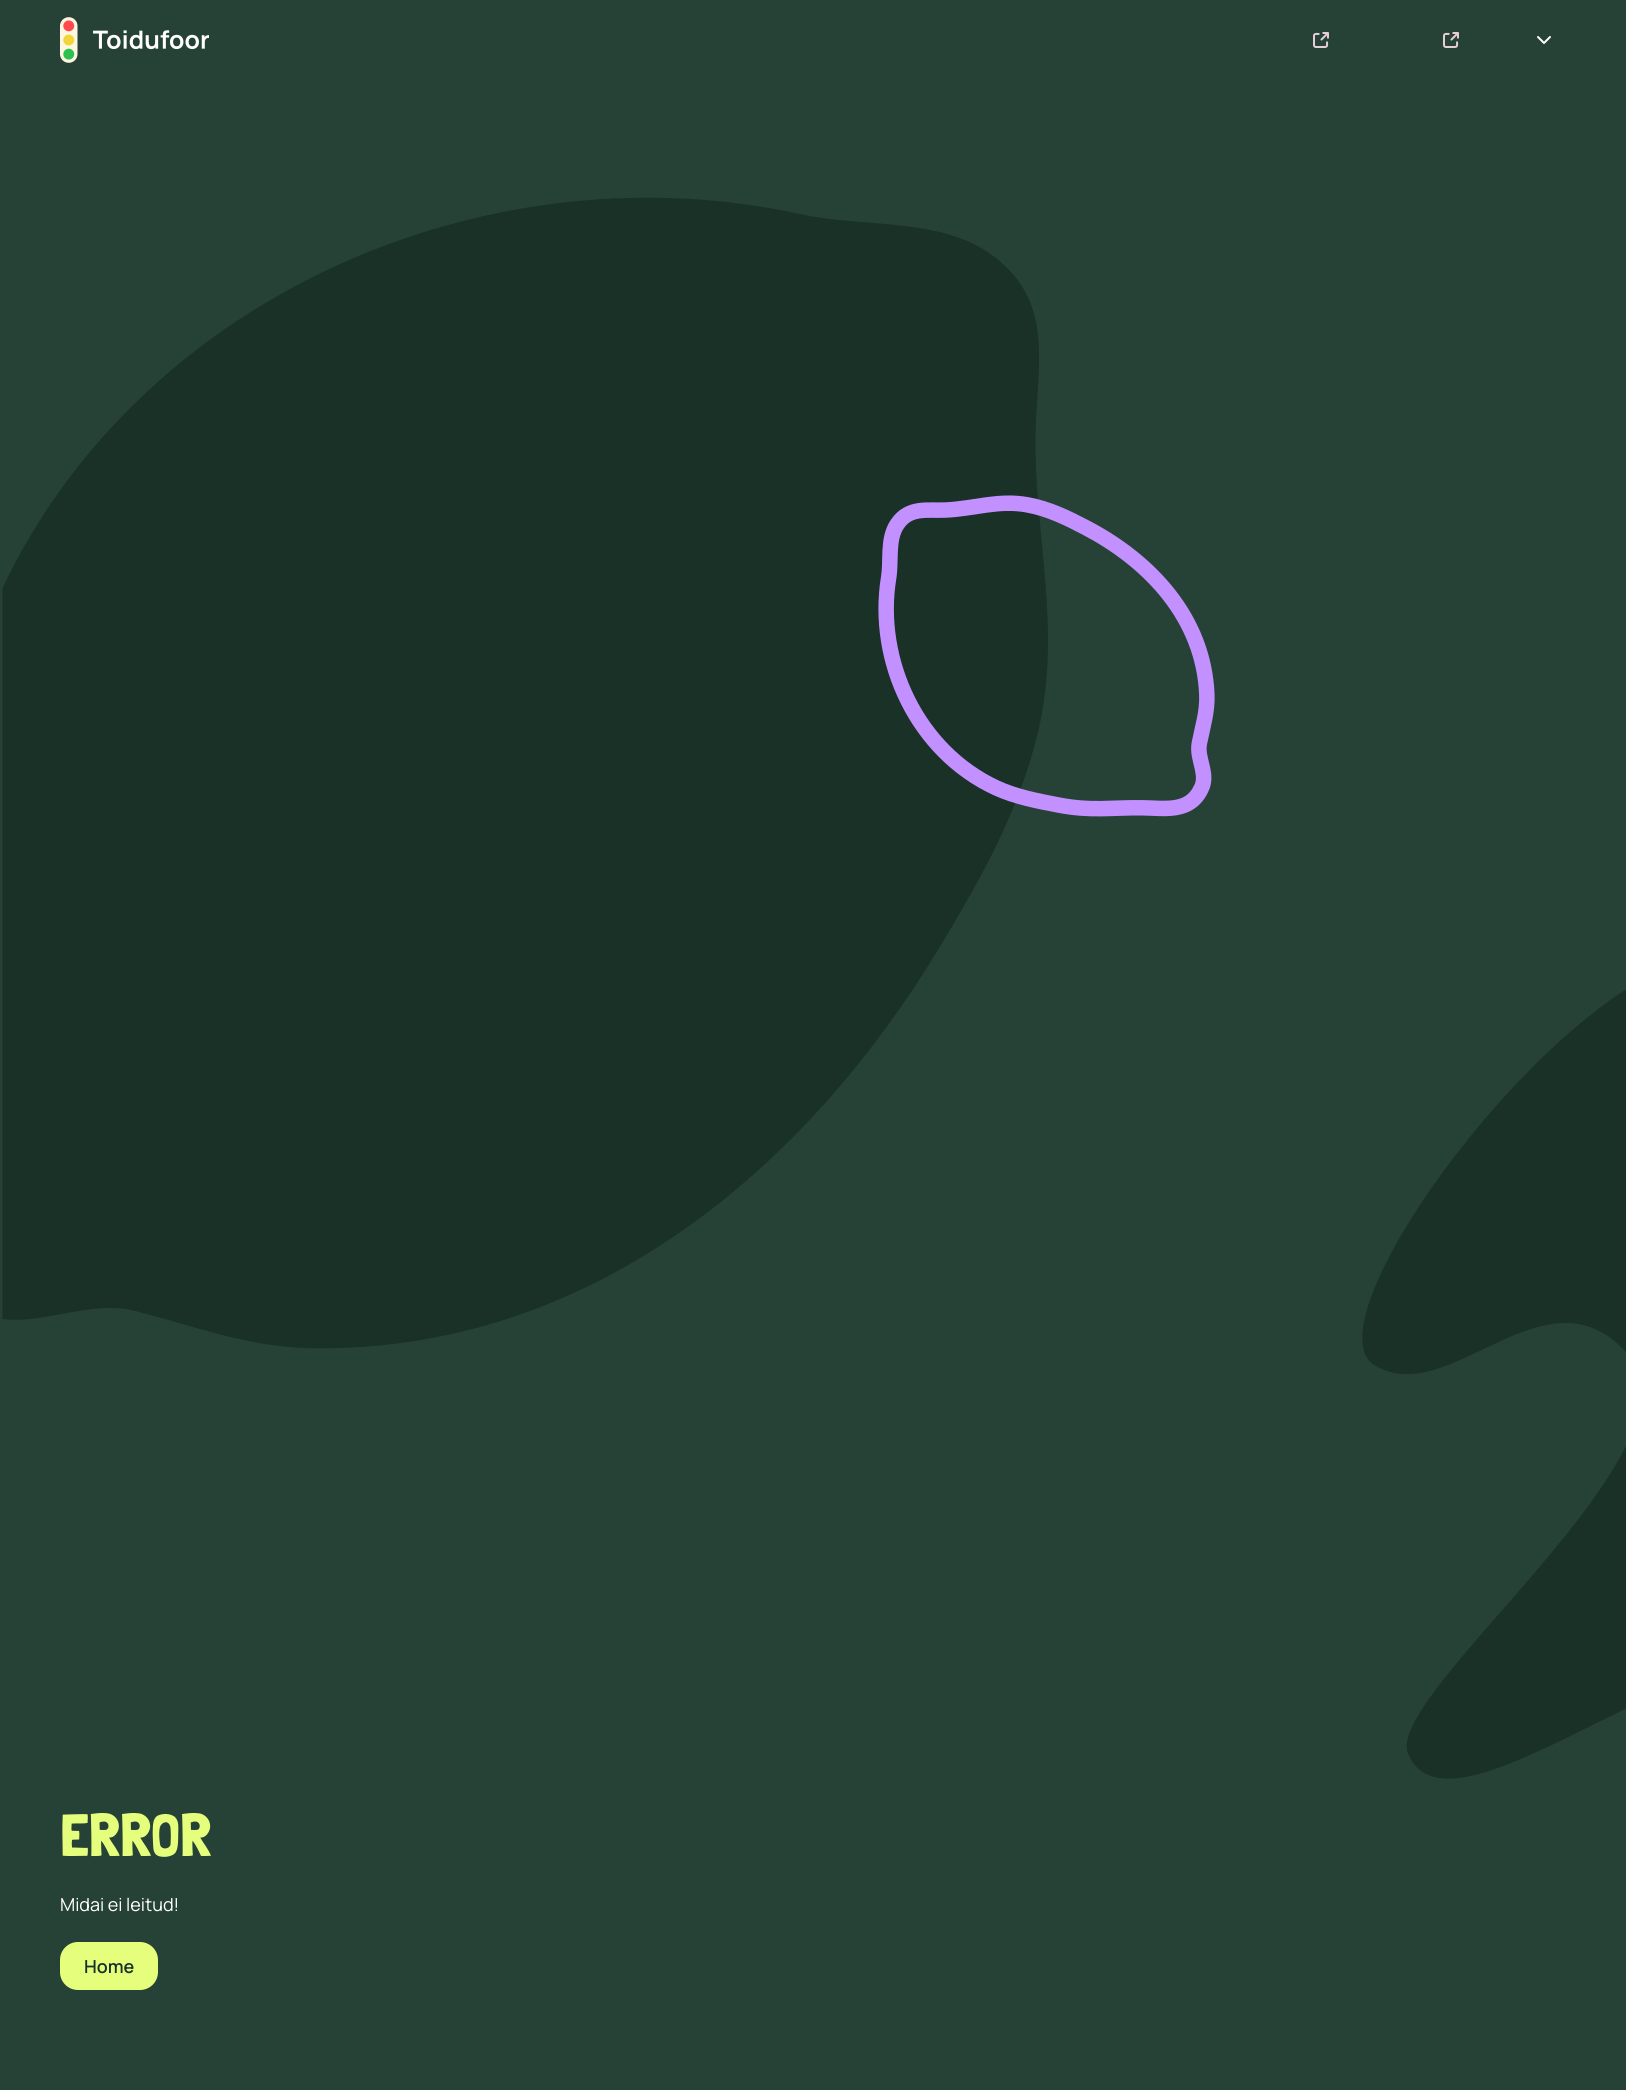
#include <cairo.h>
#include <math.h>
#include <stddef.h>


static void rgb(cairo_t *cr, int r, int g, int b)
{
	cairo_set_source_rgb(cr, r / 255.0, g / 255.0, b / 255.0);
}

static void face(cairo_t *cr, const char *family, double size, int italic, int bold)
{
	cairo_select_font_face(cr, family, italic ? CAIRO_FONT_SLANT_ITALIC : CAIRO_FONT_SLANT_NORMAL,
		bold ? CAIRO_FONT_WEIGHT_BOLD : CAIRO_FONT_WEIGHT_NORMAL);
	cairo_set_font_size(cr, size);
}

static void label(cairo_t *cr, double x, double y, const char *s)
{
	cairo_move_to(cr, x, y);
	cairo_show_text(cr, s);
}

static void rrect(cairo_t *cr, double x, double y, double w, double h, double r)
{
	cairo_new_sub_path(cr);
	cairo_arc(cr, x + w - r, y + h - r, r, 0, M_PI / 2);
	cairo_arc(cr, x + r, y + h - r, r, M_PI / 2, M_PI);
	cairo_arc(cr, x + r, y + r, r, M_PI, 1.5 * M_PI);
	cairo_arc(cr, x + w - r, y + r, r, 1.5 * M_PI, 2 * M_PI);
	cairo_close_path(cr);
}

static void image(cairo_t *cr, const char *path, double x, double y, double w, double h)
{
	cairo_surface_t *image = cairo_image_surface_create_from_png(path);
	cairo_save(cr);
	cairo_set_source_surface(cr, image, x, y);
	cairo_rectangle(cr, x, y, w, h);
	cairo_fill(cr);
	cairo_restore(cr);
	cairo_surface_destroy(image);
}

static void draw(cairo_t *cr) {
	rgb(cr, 38, 66, 55);
	cairo_paint(cr);
	image(cr, "image0.png", 60, 17, 149, 46);
	image(cr, "image1.png", 1313, 32, 16, 16);
	image(cr, "image1.png", 1443, 32, 16, 16);
	cairo_new_path(cr);
	cairo_move_to(cr, 1550, 37);
	cairo_line_to(cr, 1544, 43);
	cairo_line_to(cr, 1538, 37);
	rgb(cr, 255, 255, 255);
	cairo_set_line_cap(cr, CAIRO_LINE_CAP_ROUND);
	cairo_set_line_join(cr, CAIRO_LINE_JOIN_ROUND);
	cairo_stroke(cr);
	image(cr, "image2.png", 2, 197, 1624, 1582);
	face(cr, "Londrina Solid", 60, 0, 0);
	rgb(cr, 229, 255, 124);
	label(cr, 60, 1856, "ERROR");
	face(cr, "Manrope", 18, 0, 0);
	rgb(cr, 255, 255, 255);
	label(cr, 60, 1911, "Midai ei leitud!");
	rgb(cr, 229, 255, 124);
	rrect(cr, 60, 1942, 98, 48, 18);
	cairo_fill(cr);
	face(cr, "Manrope SemiBold", 18, 0, 0);
	rgb(cr, 26, 49, 40);
	label(cr, 84, 1973, "Home");
}

int main(void) {
	cairo_surface_t *surface = cairo_image_surface_create(CAIRO_FORMAT_RGB24, 1626, 2090);
	cairo_t *cr = cairo_create(surface);
	cairo_font_options_t *options = cairo_font_options_create();
	cairo_font_options_set_hint_metrics(options, CAIRO_HINT_METRICS_OFF);
	cairo_font_options_set_hint_style(options, CAIRO_HINT_STYLE_NONE);
	cairo_set_font_options(cr, options);
	cairo_set_miter_limit(cr, 4);
	draw(cr);
	cairo_surface_write_to_png(surface, "render.png");
	cairo_font_options_destroy(options);
	cairo_destroy(cr);
	cairo_surface_destroy(surface);
	return 0;
}
